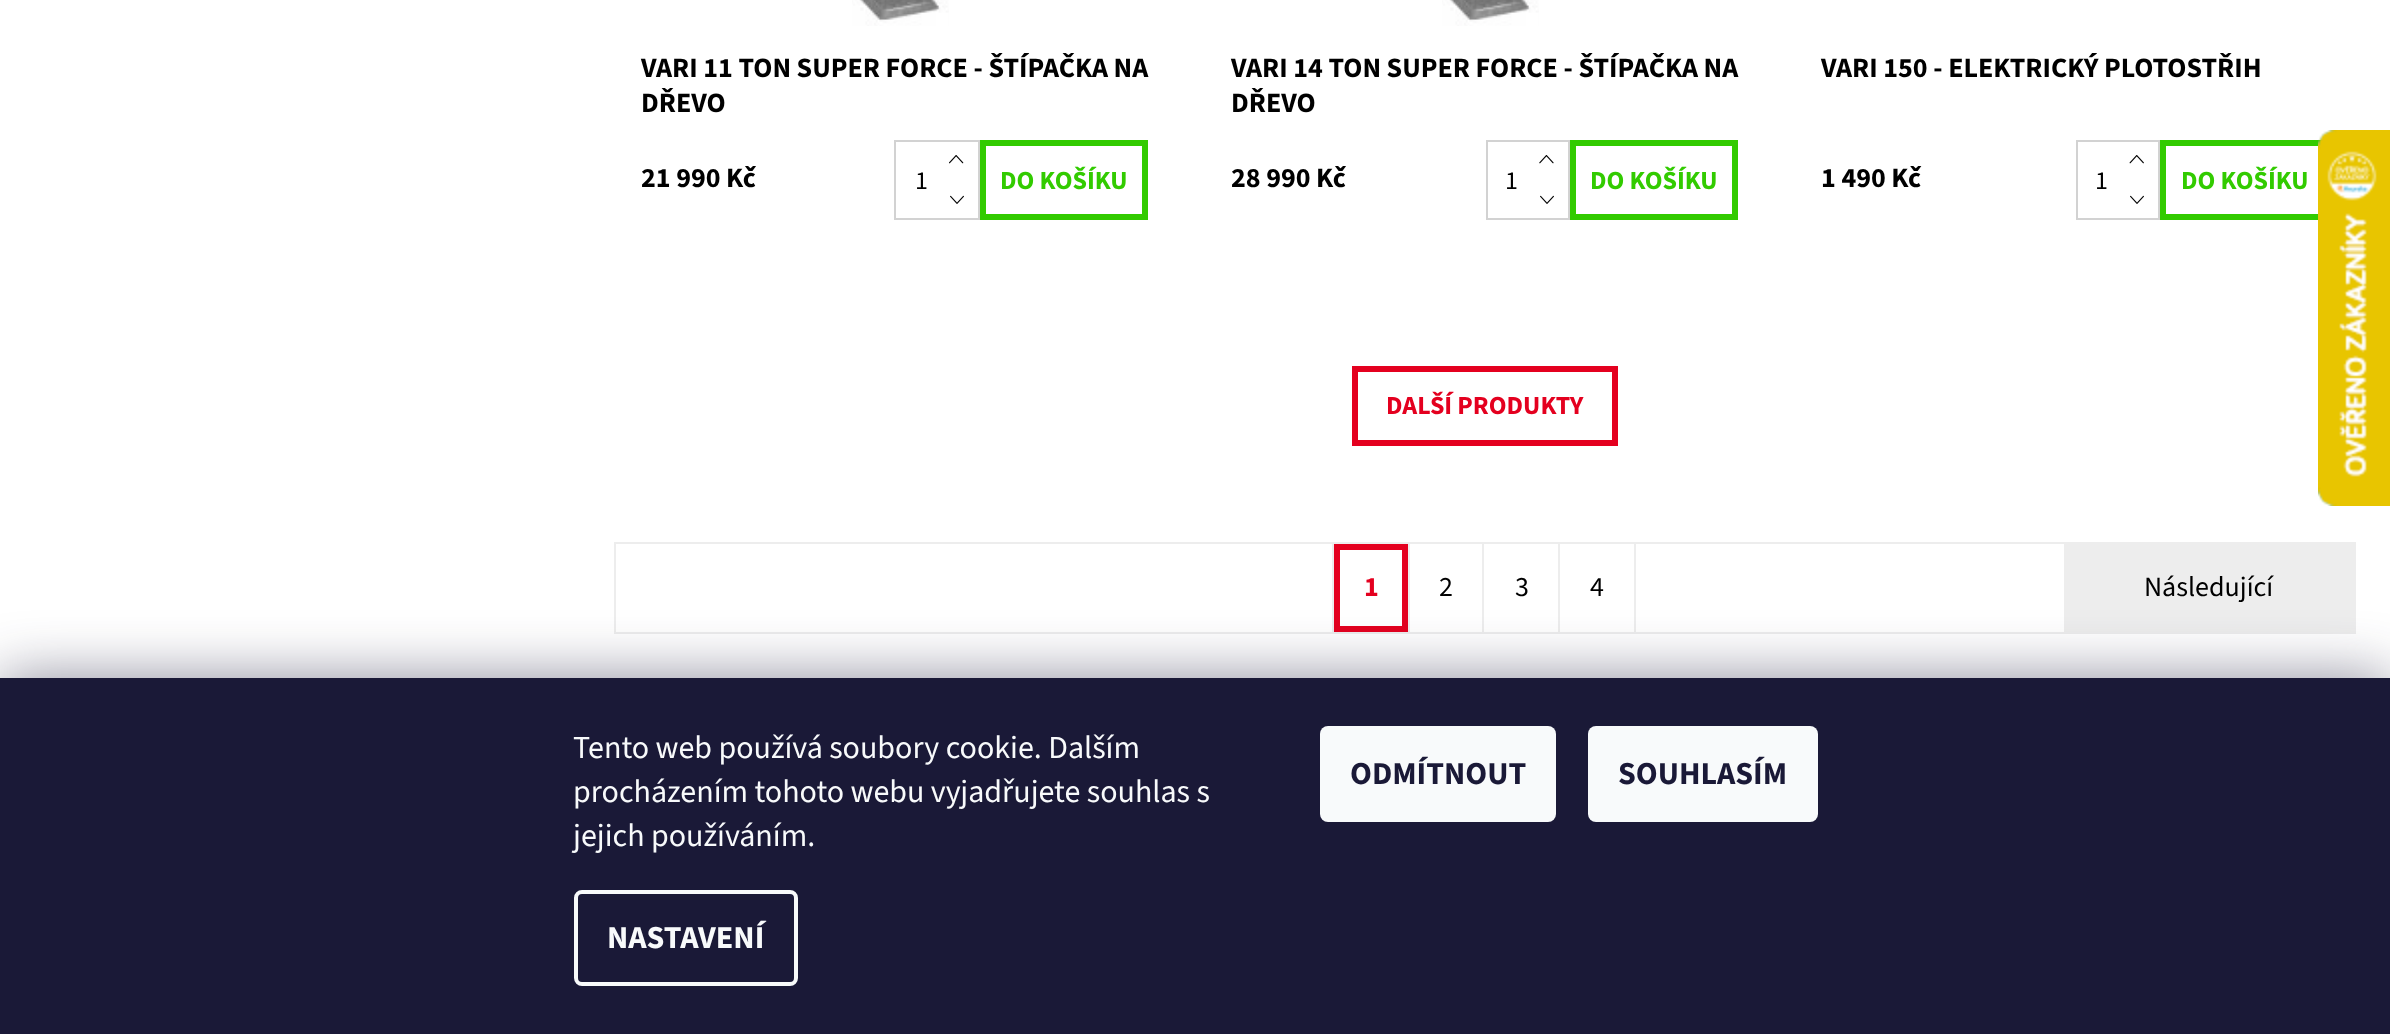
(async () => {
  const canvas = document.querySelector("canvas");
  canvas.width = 2390;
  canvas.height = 1034;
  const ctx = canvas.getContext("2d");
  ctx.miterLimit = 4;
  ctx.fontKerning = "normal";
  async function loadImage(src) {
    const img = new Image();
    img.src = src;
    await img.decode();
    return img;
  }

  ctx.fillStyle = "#ffffff";
  ctx.fillRect(0, 0, 2390, 1034);
  ctx.drawImage(await loadImage("img/1.png"), 852, 0, 97, 26);
  ctx.strokeStyle = "#d2d2d2";
  ctx.lineWidth = 2;
  ctx.strokeRect(895, 141, 84, 78);
  ctx.drawImage(await loadImage("img/2.png"), 949, 155, 15, 9);
  ctx.drawImage(await loadImage("img/3.png"), 950, 195, 14, 9);
  ctx.strokeStyle = "#32cb00";
  ctx.lineWidth = 4;
  ctx.strokeRect(984, 144, 160, 72);
  ctx.lineWidth = 2;
  ctx.strokeRect(981, 141, 166, 78);
  ctx.drawImage(await loadImage("img/1.png"), 1442, 0, 97, 26);
  ctx.strokeStyle = "#d2d2d2";
  ctx.strokeRect(1487, 141, 82, 78);
  ctx.drawImage(await loadImage("img/4.png"), 1539, 155, 15, 9);
  ctx.drawImage(await loadImage("img/3.png"), 1540, 195, 14, 9);
  ctx.strokeStyle = "#32cb00";
  ctx.lineWidth = 4;
  ctx.strokeRect(1574, 144, 160, 72);
  ctx.lineWidth = 2;
  ctx.strokeRect(1571, 141, 166, 78);
  ctx.strokeStyle = "#d2d2d2";
  ctx.strokeRect(2077, 141, 82, 78);
  ctx.drawImage(await loadImage("img/5.png"), 2129, 155, 15, 9);
  ctx.drawImage(await loadImage("img/3.png"), 2130, 195, 14, 9);
  ctx.strokeStyle = "#32cb00";
  ctx.lineWidth = 4;
  ctx.strokeRect(2164, 144, 162, 72);
  ctx.lineWidth = 2;
  ctx.strokeRect(2161, 141, 168, 78);
  ctx.strokeStyle = "#e4001f";
  ctx.lineWidth = 4;
  ctx.strokeRect(1356, 370, 258, 72);
  ctx.lineWidth = 2;
  ctx.strokeRect(1353, 367, 264, 78);
  ctx.strokeStyle = "#ededed";
  ctx.strokeRect(615, 543, 1740, 90);
  ctx.strokeStyle = "#e4001f";
  ctx.lineWidth = 6;
  ctx.strokeRect(1337, 547, 68, 82);
  for (const [x, y, w, h, color] of [
    [1408, 544, 2, 88, "#ededed"],
    [1332, 544, 2, 88, "#ededed"],
    [1482, 544, 2, 88, "#ededed"],
    [1558, 544, 2, 88, "#ededed"],
    [1634, 544, 2, 88, "#ededed"],
    [2064, 544, 290, 88, "#ededed"],
  ]) {
    ctx.fillStyle = color;
    ctx.fillRect(x, y, w, h);
  }
  ctx.drawImage(await loadImage("img/6.png"), 2318, 130, 72, 376);
  ctx.fillStyle = "rgba(27, 25, 57, 0.5)";
  ctx.filter = "blur(30px)";
  ctx.beginPath();
  ctx.rect(0, 678, 2390, 356);
  ctx.fill();
  ctx.filter = "none";
  ctx.fillStyle = "#1a1937";
  ctx.fillRect(0, 678, 2390, 356);
  ctx.beginPath();
  ctx.roundRect(576, 892, 220, 92, 6);
  ctx.strokeStyle = "#f8fafb";
  ctx.lineWidth = 4;
  ctx.stroke();
  ctx.fillStyle = "#f8fafb";
  ctx.beginPath();
  ctx.roundRect(1320, 726, 236, 96, 8);
  ctx.fill();
  ctx.beginPath();
  ctx.roundRect(1588, 726, 230, 96, 8);
  ctx.fill();
  ctx.font = "bold 28px 'Source Sans 3'";
  ctx.fillStyle = "#000000";
  for (const [text, x, y] of [
    ["VARI 11 TON SUPER FORCE - ŠTÍPAČKA NA", 641, 77],
    ["DŘEVO", 641, 112],
    ["21 990 Kč", 641, 187],
  ]) {
    ctx.fillText(text, x, y);
  }
  ctx.font = "26px 'Source Sans 3'";
  ctx.fillText("1", 915, 189);
  ctx.font = "bold 26px 'Source Sans 3'";
  ctx.fillStyle = "#32cb00";
  ctx.fillText("DO KOŠÍKU", 1000, 189);
  ctx.font = "bold 28px 'Source Sans 3'";
  ctx.fillStyle = "#000000";
  for (const [text, x, y] of [
    ["VARI 14 TON SUPER FORCE - ŠTÍPAČKA NA", 1231, 77],
    ["DŘEVO", 1231, 112],
    ["28 990 Kč", 1231, 187],
  ]) {
    ctx.fillText(text, x, y);
  }
  ctx.font = "26px 'Source Sans 3'";
  ctx.fillText("1", 1505, 189);
  ctx.font = "bold 26px 'Source Sans 3'";
  ctx.fillStyle = "#32cb00";
  ctx.fillText("DO KOŠÍKU", 1590, 189);
  ctx.font = "bold 28px 'Source Sans 3'";
  ctx.fillStyle = "#000000";
  ctx.fillText("VARI 150 - ELEKTRICKÝ PLOTOSTŘIH", 1821, 77);
  ctx.fillText("1 490 Kč", 1821, 187);
  ctx.font = "26px 'Source Sans 3'";
  ctx.fillText("1", 2095, 189);
  ctx.font = "bold 26px 'Source Sans 3'";
  ctx.fillStyle = "#32cb00";
  ctx.fillText("DO KOŠÍKU", 2181, 189);
  ctx.fillStyle = "#e4001f";
  ctx.fillText("DALŠÍ PRODUKTY", 1386, 414);
  ctx.font = "bold 28px 'Source Sans 3'";
  ctx.fillText("1", 1364, 596);
  ctx.font = "28px 'Source Sans 3'";
  ctx.fillStyle = "#000000";
  for (const [text, x, y] of [
    ["2", 1439, 596],
    ["3", 1515, 596],
    ["4", 1590, 596],
    ["Následující", 2144, 596],
  ]) {
    ctx.fillText(text, x, y);
  }
  ctx.font = "32px 'Source Sans 3'";
  ctx.fillStyle = "#f8fafb";
  for (const [text, x, y] of [
    ["Tento web používá soubory cookie. Dalším", 573, 758],
    ["procházením tohoto webu vyjadřujete souhlas s", 573, 802],
    ["jejich používáním.", 573, 846],
  ]) {
    ctx.fillText(text, x, y);
  }
  ctx.font = "bold 32px 'Source Sans 3'";
  ctx.fillText("NASTAVENÍ", 607, 948);
  ctx.fillStyle = "#1a1937";
  ctx.fillText("ODMÍTNOUT", 1350, 784);
  ctx.fillText("SOUHLASÍM", 1618, 784);
})();
